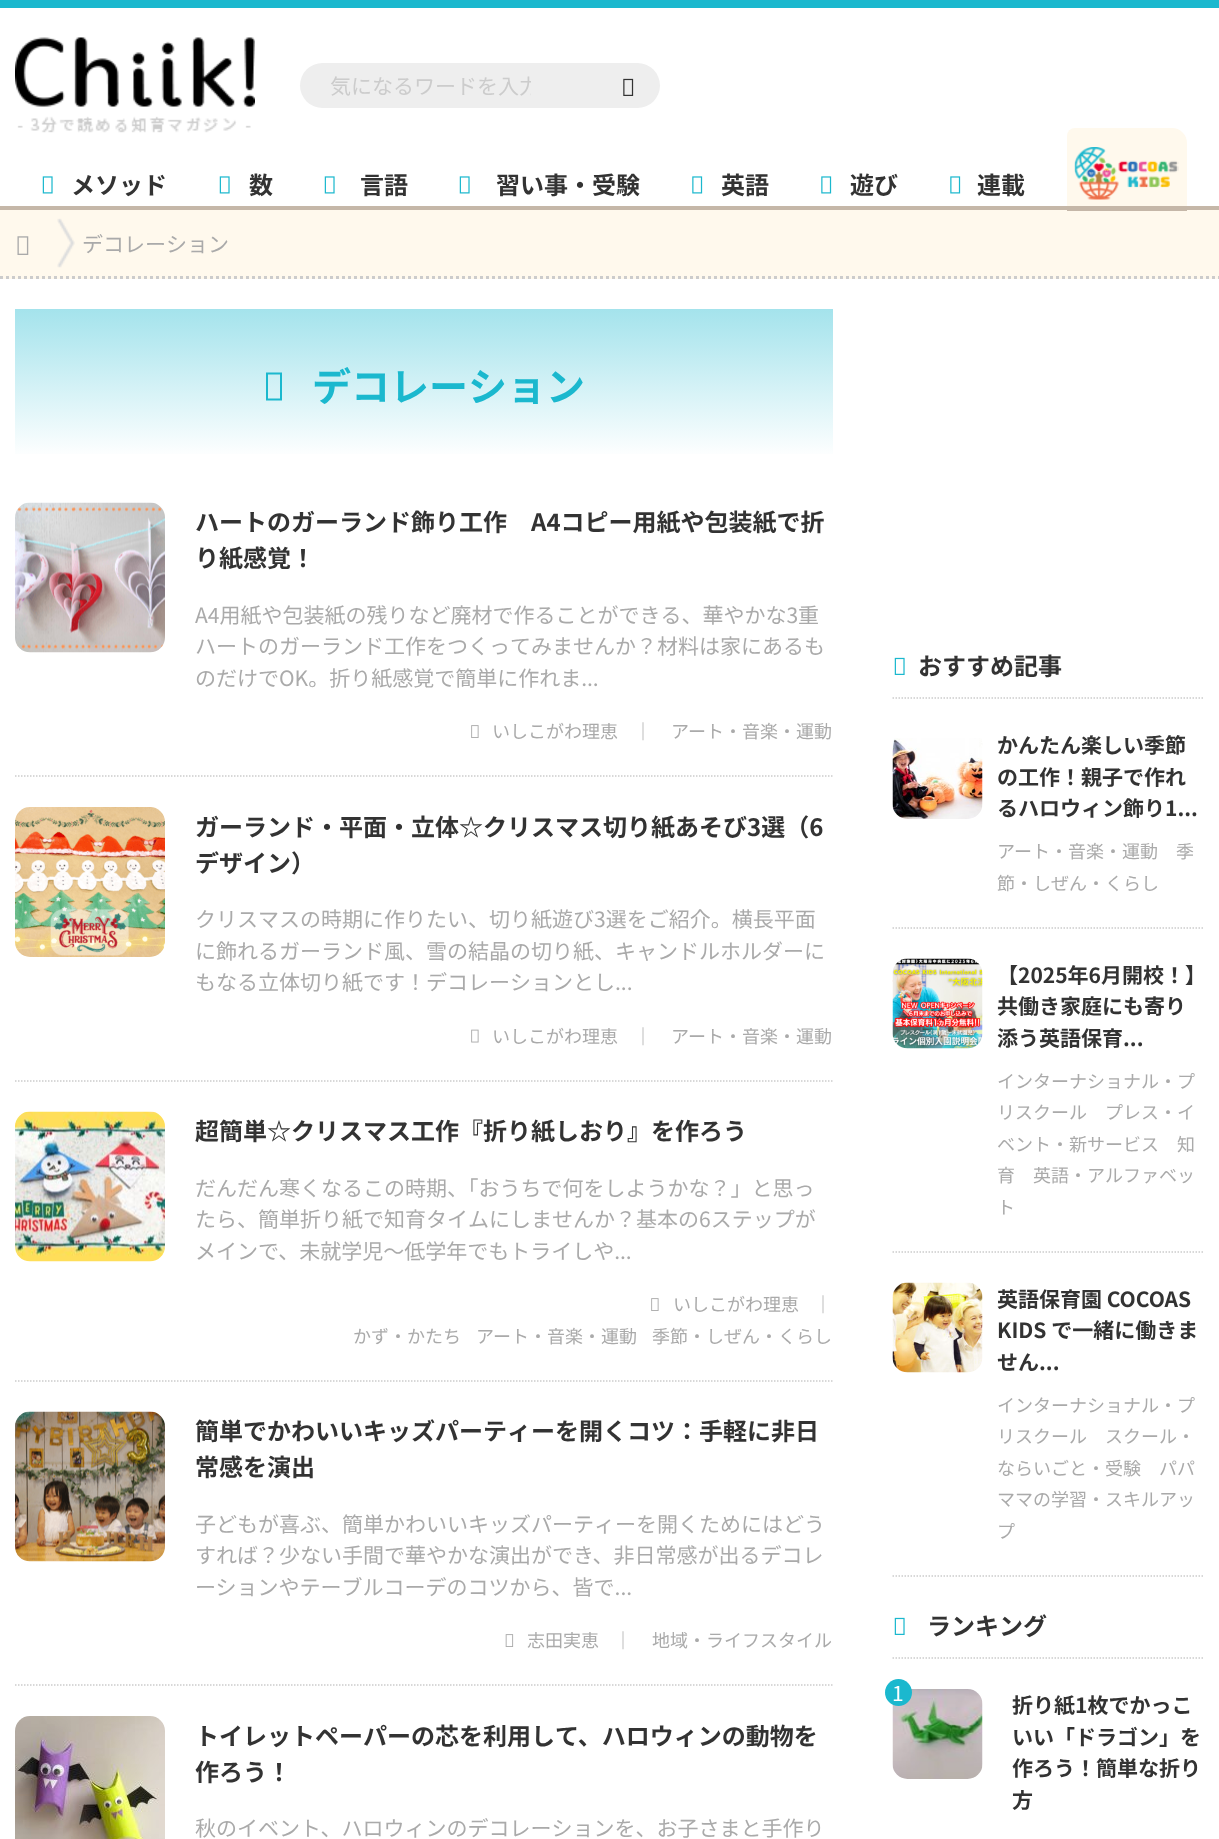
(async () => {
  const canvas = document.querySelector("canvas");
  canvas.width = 1219;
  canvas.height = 1839;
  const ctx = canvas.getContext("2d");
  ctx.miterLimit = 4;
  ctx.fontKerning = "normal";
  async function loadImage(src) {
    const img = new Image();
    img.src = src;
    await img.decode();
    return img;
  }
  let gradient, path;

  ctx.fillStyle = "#ffffff";
  ctx.fillRect(0, 0, 1219, 1839);
  ctx.fillStyle = "#1bb8ce";
  ctx.fillRect(0, 0, 1219, 8);
  ctx.drawImage(await loadImage("img/1.png"), 15, 37, 240, 96);
  ctx.fillStyle = "#eeeeee";
  ctx.beginPath();
  ctx.roundRect(300, 63, 360, 45, 22.5);
  ctx.fill();
  ctx.drawImage(await loadImage("img/2.png"), 623, 78, 11, 18);
  ctx.fillStyle = "#c5b7a8";
  ctx.fillRect(0, 206, 1219, 4);
  ctx.drawImage(await loadImage("img/3.png"), 42, 176, 11, 18);
  ctx.drawImage(await loadImage("img/3.png"), 219, 176, 11, 18);
  ctx.drawImage(await loadImage("img/3.png"), 324, 176, 11, 18);
  ctx.drawImage(await loadImage("img/3.png"), 459, 176, 11, 18);
  ctx.drawImage(await loadImage("img/4.png"), 692, 176, 11, 18);
  ctx.drawImage(await loadImage("img/4.png"), 821, 176, 11, 18);
  ctx.drawImage(await loadImage("img/4.png"), 950, 176, 11, 18);
  ctx.fillStyle = "#fff9ed";
  ctx.beginPath();
  ctx.roundRect(1067, 128, 120, 82, [8, 15, 0, 0]);
  ctx.fill();
  ctx.fillRect(0, 210, 1219, 69);
  ctx.fillStyle = "#c5b7a8";
  ctx.fillRect(1067, 206, 120, 5);
  ctx.drawImage(await loadImage("img/5.png"), 1074, 147, 105, 53);
  path = new Path2D("M0 277.5H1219.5");
  ctx.strokeStyle = "#cccccc";
  ctx.lineWidth = 3;
  ctx.setLineDash([3, 3]);
  ctx.stroke(path);
  ctx.drawImage(await loadImage("img/6.png"), 17, 236, 12, 19);
  ctx.drawImage(await loadImage("img/7.png"), 57, 218, 18, 50);
  gradient = ctx.createLinearGradient(424, 309, 424, 458);
  gradient.addColorStop(0, "#a4e3ec");
  gradient.addColorStop(1, "#ffffff");
  ctx.fillStyle = gradient;
  ctx.fillRect(15, 309, 818, 145);
  ctx.fillStyle = "#1bb8ce";
  path = new Path2D("M266 400.5V372.5H282V400.5ZM268 398.5H280V374.5H268Z");
  ctx.fill(path);
  path = new Path2D("M15 776H832.5");
  ctx.lineWidth = 1.5;
  ctx.setLineDash([1.5, 1.5]);
  ctx.stroke(path);
  ctx.drawImage(await loadImage("img/8.png"), 15, 502, 150, 151);
  ctx.drawImage(await loadImage("img/9.png"), 471, 725, 8, 13);
  path = new Path2D("M15 1081H832.5");
  ctx.stroke(path);
  ctx.drawImage(await loadImage("img/10.png"), 15, 807, 150, 150);
  ctx.drawImage(await loadImage("img/11.png"), 471, 1029, 8, 14);
  path = new Path2D("M15 1381H832.5");
  ctx.stroke(path);
  ctx.drawImage(await loadImage("img/12.png"), 15, 1111, 150, 151);
  ctx.drawImage(await loadImage("img/9.png"), 651, 1298, 8, 13);
  path = new Path2D("M15 1685H832.5");
  ctx.stroke(path);
  ctx.drawImage(await loadImage("img/13.png"), 15, 1411, 150, 151);
  ctx.drawImage(await loadImage("img/14.png"), 505, 1634, 9, 13);
  ctx.drawImage(await loadImage("img/15.png"), 15, 1716, 150, 123);
  path = new Path2D("M892.5 698H1204.5");
  ctx.stroke(path);
  ctx.drawImage(await loadImage("img/16.png"), 894, 657, 11, 18);
  path = new Path2D("M892.5 928H1204.5");
  ctx.stroke(path);
  ctx.drawImage(await loadImage("img/17.png"), 892, 738, 91, 81);
  path = new Path2D("M892.5 1252H1204.5");
  ctx.stroke(path);
  ctx.drawImage(await loadImage("img/18.png"), 892, 958, 91, 91);
  path = new Path2D("M892.5 1576H1204.5");
  ctx.stroke(path);
  ctx.drawImage(await loadImage("img/19.png"), 892, 1282, 91, 91);
  path = new Path2D("M892.5 1658H1204.5");
  ctx.stroke(path);
  ctx.drawImage(await loadImage("img/16.png"), 894, 1617, 11, 18);
  ctx.drawImage(await loadImage("img/20.png"), 892, 1689, 91, 90);
  ctx.beginPath();
  ctx.arc(898.5, 1692.5, 13.5, 0, Math.PI * 2);
  ctx.fill();
  ctx.save();
  ctx.beginPath();
  ctx.rect(330, 71, 201, 30);
  ctx.clip();
  ctx.font = "21px Noto Sans JP";
  ctx.fillStyle = "#cccccc";
  ctx.fillText("気になるワードを入力", 330, 94);
  ctx.restore();
  ctx.font = "bold 24px Noto Sans JP";
  ctx.fillStyle = "#333333";
  for (const [text, x, y] of [
    ["メソッド", 71, 194],
    ["数", 249, 194],
    ["言語", 360, 194],
    ["習い事・受験", 496, 194],
    ["英語", 721, 194],
    ["遊び", 850, 194],
    ["連載", 977, 194],
  ]) {
    ctx.fillText(text, x, y);
  }
  ctx.font = "21px Noto Sans JP";
  ctx.fillStyle = "#aaaaaa";
  ctx.fillText("デコレーション", 82, 252);
  ctx.font = "bold 39px Noto Sans JP";
  ctx.fillStyle = "#1bb8ce";
  ctx.fillText("デコレーション", 312, 401);
  ctx.font = "bold 24px Noto Sans JP";
  ctx.fillStyle = "#333333";
  ctx.fillText("ハートのガーランド飾り工作　A4コピー用紙や包装紙で折", 195, 531);
  ctx.fillText("り紙感覚！", 195, 567);
  ctx.font = "21px Noto Sans JP";
  ctx.fillStyle = "#aaaaaa";
  for (const [text, x, y] of [
    ["A4用紙や包装紙の残りなど廃材で作ることができる、華やかな3重", 195, 623],
    ["ハートのガーランド工作をつくってみませんか？材料は家にあるも", 195, 654],
    ["のだけでOK。折り紙感覚で簡単に作れま...", 195, 686],
  ]) {
    ctx.fillText(text, x, y);
  }
  ctx.font = "18px Noto Sans JP";
  for (const [text, x, y] of [
    ["いしこがわ理恵", 492, 738],
    ["│", 634, 738],
    ["アート・音楽・運動", 671, 738],
  ]) {
    ctx.fillText(text, x, y);
  }
  ctx.font = "bold 24px Noto Sans JP";
  ctx.fillStyle = "#333333";
  ctx.fillText("ガーランド・平面・立体☆クリスマス切り紙あそび3選（6", 195, 836);
  ctx.fillText("デザイン）", 195, 872);
  ctx.font = "21px Noto Sans JP";
  ctx.fillStyle = "#aaaaaa";
  for (const [text, x, y] of [
    ["クリスマスの時期に作りたい、切り紙遊び3選をご紹介。横長平面", 195, 927],
    ["に飾れるガーランド風、雪の結晶の切り紙、キャンドルホルダーに", 195, 959],
    ["もなる立体切り紙です！デコレーションとし...", 195, 990],
  ]) {
    ctx.fillText(text, x, y);
  }
  ctx.font = "18px Noto Sans JP";
  for (const [text, x, y] of [
    ["いしこがわ理恵", 492, 1043],
    ["│", 634, 1043],
    ["アート・音楽・運動", 671, 1043],
  ]) {
    ctx.fillText(text, x, y);
  }
  ctx.font = "bold 24px Noto Sans JP";
  ctx.fillStyle = "#333333";
  ctx.fillText("超簡単☆クリスマス工作『折り紙しおり』を作ろう", 195, 1140);
  ctx.font = "21px Noto Sans JP";
  ctx.fillStyle = "#aaaaaa";
  for (const [text, x, y] of [
    ["だんだん寒くなるこの時期、「おうちで何をしようかな？」と思っ", 195, 1196],
    ["たら、簡単折り紙で知育タイムにしませんか？基本の6ステップが", 195, 1227],
    ["メインで、未就学児～低学年でもトライしや...", 195, 1259],
  ]) {
    ctx.fillText(text, x, y);
  }
  ctx.font = "18px Noto Sans JP";
  for (const [text, x, y] of [
    ["いしこがわ理恵", 673, 1311],
    ["│", 814, 1311],
    ["かず・かたち", 353, 1343],
    ["アート・音楽・運動", 476, 1343],
    ["季節・しぜん・くらし", 652, 1343],
  ]) {
    ctx.fillText(text, x, y);
  }
  ctx.font = "bold 24px Noto Sans JP";
  ctx.fillStyle = "#333333";
  ctx.fillText("簡単でかわいいキッズパーティーを開くコツ：手軽に非日", 195, 1440);
  ctx.fillText("常感を演出", 195, 1476);
  ctx.font = "21px Noto Sans JP";
  ctx.fillStyle = "#aaaaaa";
  for (const [text, x, y] of [
    ["子どもが喜ぶ、簡単かわいいキッズパーティーを開くためにはどう", 195, 1532],
    ["すれば？少ない手間で華やかな演出ができ、非日常感が出るデコレ", 195, 1563],
    ["ーションやテーブルコーデのコツから、皆で...", 195, 1595],
  ]) {
    ctx.fillText(text, x, y);
  }
  ctx.font = "18px Noto Sans JP";
  for (const [text, x, y] of [
    ["志田実恵", 527, 1647],
    ["│", 614, 1647],
    ["地域・ライフスタイル", 652, 1647],
  ]) {
    ctx.fillText(text, x, y);
  }
  ctx.font = "bold 24px Noto Sans JP";
  ctx.fillStyle = "#333333";
  ctx.fillText("トイレットペーパーの芯を利用して、ハロウィンの動物を", 195, 1745);
  ctx.fillText("作ろう！", 195, 1781);
  ctx.font = "21px Noto Sans JP";
  ctx.fillStyle = "#aaaaaa";
  ctx.fillText("秋のイベント、ハロウィンのデコレーションを、お子さまと手作り", 195, 1836);
  ctx.font = "bold 24px Noto Sans JP";
  ctx.fillStyle = "#333333";
  ctx.fillText("おすすめ記事", 918, 675);
  ctx.font = "bold 21px Noto Sans JP";
  for (const [text, x, y] of [
    ["かんたん楽しい季節", 997, 753],
    ["の工作！親子で作れ", 997, 785],
    ["るハロウィン飾り1...", 997, 816],
  ]) {
    ctx.fillText(text, x, y);
  }
  ctx.font = "18px Noto Sans JP";
  ctx.fillStyle = "#aaaaaa";
  for (const [text, x, y] of [
    ["アート・音楽・運動", 997, 858],
    ["季", 1176, 858],
    ["節・しぜん・くらし", 997, 890],
  ]) {
    ctx.fillText(text, x, y);
  }
  ctx.font = "bold 21px Noto Sans JP";
  ctx.fillStyle = "#333333";
  for (const [text, x, y] of [
    ["【2025年6月開校！】", 997, 983],
    ["共働き家庭にも寄り", 997, 1014],
    ["添う英語保育...", 997, 1046],
  ]) {
    ctx.fillText(text, x, y);
  }
  ctx.font = "18px Noto Sans JP";
  ctx.fillStyle = "#aaaaaa";
  for (const [text, x, y] of [
    ["インターナショナル・プ", 997, 1088],
    ["リスクール", 997, 1119],
    ["プレス・イ", 1105, 1119],
    ["ベント・新サービス", 997, 1151],
    ["知", 1177, 1151],
    ["育", 997, 1182],
    ["英語・アルファベッ", 1033, 1182],
    ["ト", 997, 1214],
  ]) {
    ctx.fillText(text, x, y);
  }
  ctx.font = "bold 21px Noto Sans JP";
  ctx.fillStyle = "#333333";
  for (const [text, x, y] of [
    ["英語保育園 COCOAS", 997, 1307],
    ["KIDS で一緒に働きま", 997, 1338],
    ["せん...", 997, 1370],
  ]) {
    ctx.fillText(text, x, y);
  }
  ctx.font = "18px Noto Sans JP";
  ctx.fillStyle = "#aaaaaa";
  for (const [text, x, y] of [
    ["インターナショナル・プ", 997, 1412],
    ["リスクール", 997, 1443],
    ["スクール・", 1105, 1443],
    ["ならいごと・受験", 997, 1475],
    ["パパ", 1159, 1475],
    ["ママの学習・スキルアッ", 997, 1506],
    ["プ", 997, 1538],
  ]) {
    ctx.fillText(text, x, y);
  }
  ctx.font = "bold 24px Noto Sans JP";
  ctx.fillStyle = "#333333";
  ctx.fillText("ランキング", 927, 1635);
  ctx.font = "21px Noto Sans JP";
  ctx.fillStyle = "#ffffff";
  ctx.fillText("1", 892, 1701);
  ctx.font = "bold 21px Noto Sans JP";
  ctx.fillStyle = "#333333";
  for (const [text, x, y] of [
    ["折り紙1枚でかっこ", 1012, 1713],
    ["いい「ドラゴン」を", 1012, 1745],
    ["作ろう！簡単な折り", 1012, 1776],
    ["方", 1012, 1808],
  ]) {
    ctx.fillText(text, x, y);
  }
})();
